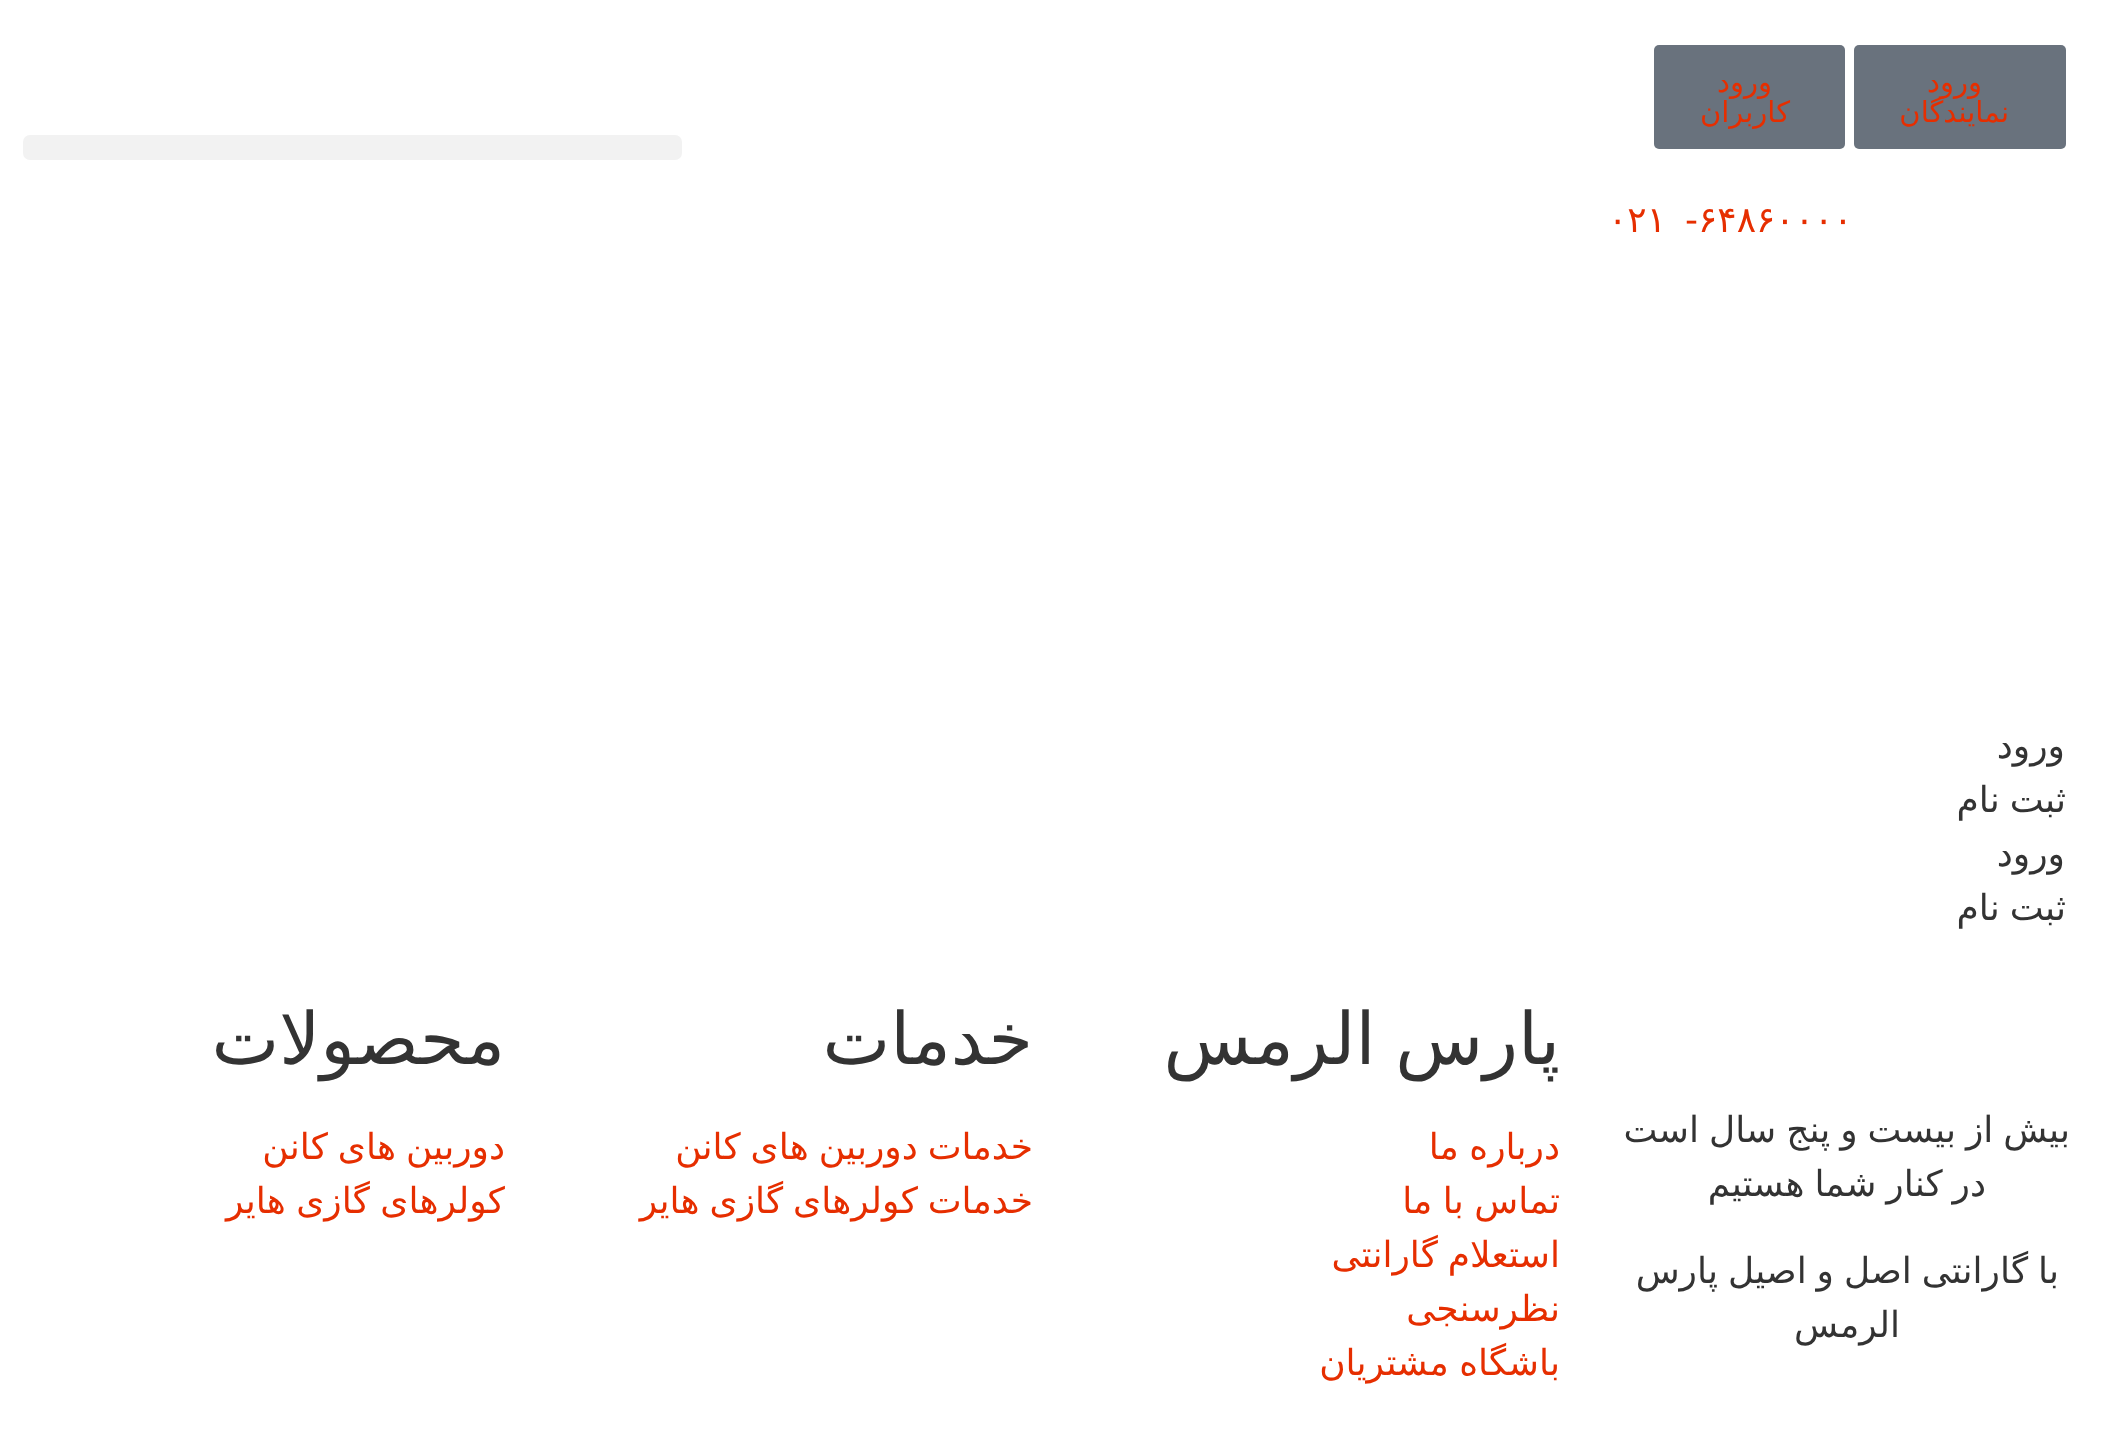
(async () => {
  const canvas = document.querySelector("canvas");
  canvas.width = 2110;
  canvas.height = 1453;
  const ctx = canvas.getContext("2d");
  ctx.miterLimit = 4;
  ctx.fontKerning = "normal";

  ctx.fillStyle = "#ffffff";
  ctx.fillRect(0, 0, 2110, 1453);
  ctx.fillStyle = "#69727d";
  ctx.beginPath();
  ctx.roundRect(1854, 45, 212, 104, 5);
  ctx.fill();
  ctx.beginPath();
  ctx.roundRect(1654, 45, 191, 104, 5);
  ctx.fill();
  ctx.fillStyle = "#f2f2f2";
  ctx.beginPath();
  ctx.roundRect(23, 135, 659, 25, 7);
  ctx.fill();
  ctx.direction = "rtl";
  ctx.font = "29px DejaVu Sans";
  ctx.fillStyle = "#e62e00";
  for (const [text, x, y] of [
    ["ورود", 1982, 92],
    ["نمایندگان", 2009, 122],
    ["ورود", 1772, 92],
    ["کاربران", 1790, 122],
  ]) {
    ctx.fillText(text, x, y);
  }
  ctx.direction = "ltr";
  ctx.font = "36px DejaVu Sans";
  ctx.fillText("-۶۴۸۶۰۰۰۰", 1685, 232);
  ctx.fillText("۰۲۱", 1608, 232);
  ctx.direction = "rtl";
  ctx.fillStyle = "#333333";
  ctx.fillText("ورود", 2065, 758);
  ctx.wordSpacing = "-1.5px";
  ctx.fillText("ثبت نام", 2066, 812);
  ctx.wordSpacing = "0px";
  ctx.fillText("ورود", 2065, 866);
  ctx.wordSpacing = "-1.5px";
  for (const [text, x, y] of [
    ["ثبت نام", 2066, 920],
    ["بیش از بیست و پنج سال است", 2070, 1142],
    ["در کنار شما هستیم", 1986, 1196],
    ["با گارانتی اصل و اصیل پارس", 2059, 1283],
  ]) {
    ctx.fillText(text, x, y);
  }
  ctx.wordSpacing = "0px";
  ctx.fillText("الرمس", 1900, 1337);
  ctx.wordSpacing = "-3px";
  ctx.font = "72px DejaVu Sans";
  ctx.fillText("پارس الرمس", 1560, 1064);
  ctx.wordSpacing = "-1px";
  ctx.font = "36px DejaVu Sans";
  ctx.fillStyle = "#e62e00";
  ctx.fillText("درباره ما", 1560, 1159);
  ctx.fillText("تماس با ما", 1560, 1213);
  ctx.wordSpacing = "-1.5px";
  ctx.fillText("استعلام گارانتی", 1560, 1267);
  ctx.wordSpacing = "0px";
  ctx.fillText("نظرسنجی", 1560, 1321);
  ctx.wordSpacing = "-1px";
  ctx.fillText("باشگاه مشتریان", 1560, 1375);
  ctx.wordSpacing = "0px";
  ctx.font = "72px DejaVu Sans";
  ctx.fillStyle = "#333333";
  ctx.fillText("خدمات", 1033, 1064);
  ctx.wordSpacing = "-1.5px";
  ctx.font = "36px DejaVu Sans";
  ctx.fillStyle = "#e62e00";
  ctx.fillText("خدمات دوربین های کانن", 1033, 1159);
  ctx.fillText("خدمات کولرهای گازی هایر", 1033, 1213);
  ctx.wordSpacing = "0px";
  ctx.font = "72px DejaVu Sans";
  ctx.fillStyle = "#333333";
  ctx.fillText("محصولات", 505, 1064);
  ctx.wordSpacing = "-1.5px";
  ctx.font = "36px DejaVu Sans";
  ctx.fillStyle = "#e62e00";
  ctx.fillText("دوربین های کانن", 505, 1159);
  ctx.wordSpacing = "-1px";
  ctx.fillText("کولرهای گازی هایر", 505, 1213);
})();
